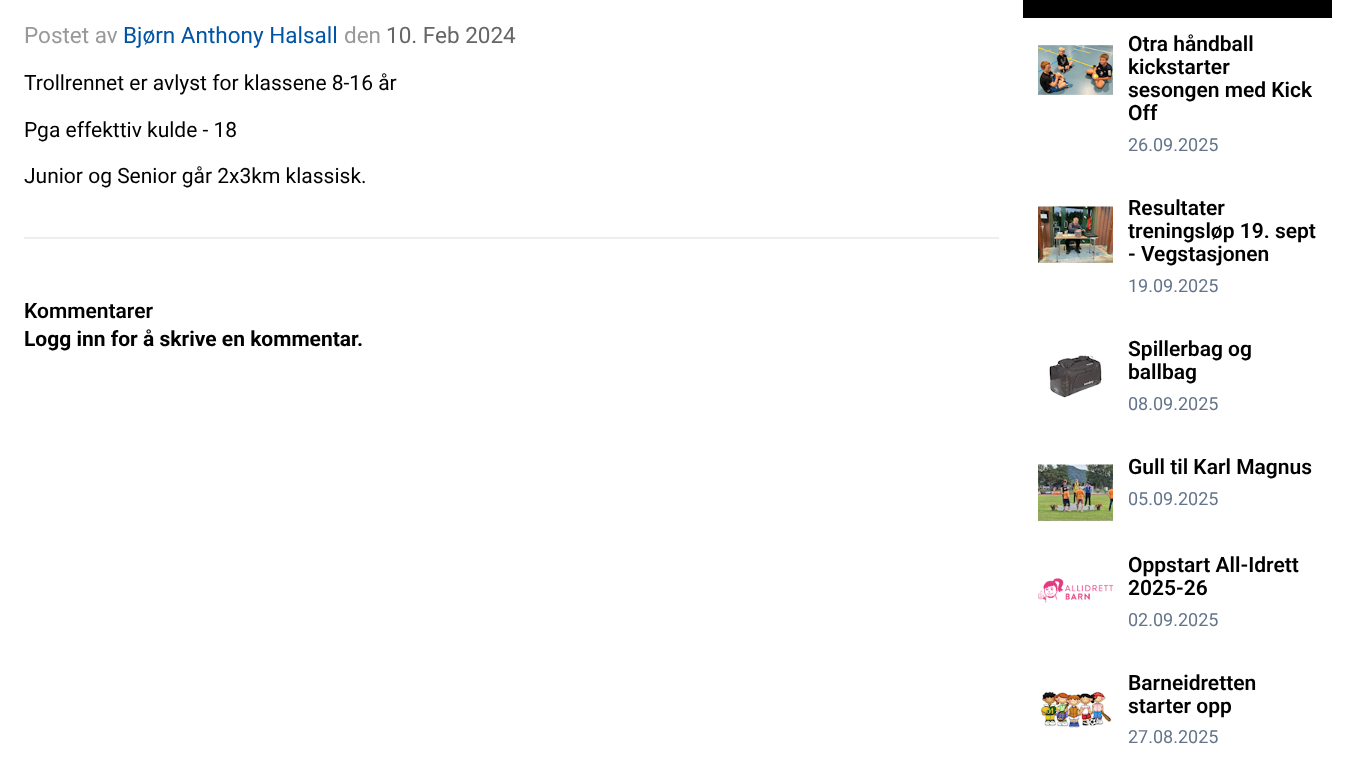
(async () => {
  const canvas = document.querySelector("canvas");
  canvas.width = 1356;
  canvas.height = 783;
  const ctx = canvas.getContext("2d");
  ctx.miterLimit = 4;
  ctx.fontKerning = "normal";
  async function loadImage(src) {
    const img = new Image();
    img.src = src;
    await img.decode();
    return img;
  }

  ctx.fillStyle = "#ffffff";
  ctx.fillRect(0, 0, 1356, 783);
  ctx.fillStyle = "#eeeeee";
  ctx.fillRect(24, 237, 975, 2);
  ctx.fillStyle = "#000000";
  ctx.fillRect(1023, 0, 309, 18);
  ctx.drawImage(await loadImage("img/1.png"), 1038, 45, 75, 50);
  ctx.drawImage(await loadImage("img/2.png"), 1038, 198, 75, 66);
  ctx.drawImage(await loadImage("img/3.png"), 1049, 355, 53, 43);
  ctx.drawImage(await loadImage("img/4.png"), 1038, 463, 75, 59);
  ctx.drawImage(await loadImage("img/5.png"), 1038, 578, 75, 25);
  ctx.drawImage(await loadImage("img/6.png"), 1040, 691, 72, 37);
  ctx.font = "22.5px Roboto";
  ctx.fillStyle = "#999999";
  ctx.fillText("Postet av", 24, 43);
  ctx.fillStyle = "#0054a6";
  ctx.fillText("Bjørn Anthony Halsall", 123, 43);
  ctx.fillStyle = "#999999";
  ctx.fillText("den", 344, 43);
  ctx.fillStyle = "#666666";
  ctx.fillText("10. Feb 2024", 386, 43);
  ctx.font = "21px Roboto";
  ctx.fillStyle = "#000000";
  for (const [text, x, y] of [
    ["Trollrennet er avlyst for klassene 8-16 år", 24, 90],
    ["Pga effekttiv kulde - 18", 24, 137],
    ["Junior og Senior går 2x3km klassisk.", 24, 183],
  ]) {
    ctx.fillText(text, x, y);
  }
  ctx.font = "600 21px Roboto";
  ctx.fillText("Kommentarer", 24, 318);
  ctx.font = "bold 21px Roboto";
  ctx.fillText("Logg inn for å skrive en kommentar.", 24, 346);
  ctx.font = "600 21px Roboto";
  for (const [text, x, y] of [
    ["Otra håndball", 1128, 51],
    ["kickstarter", 1128, 74],
    ["sesongen med Kick", 1128, 97],
    ["Off", 1128, 120],
  ]) {
    ctx.fillText(text, x, y);
  }
  ctx.font = "18px Roboto";
  ctx.fillStyle = "#64748b";
  ctx.fillText("26.09.2025", 1128, 151);
  ctx.font = "600 21px Roboto";
  ctx.fillStyle = "#000000";
  for (const [text, x, y] of [
    ["Resultater", 1128, 215],
    ["treningsløp 19. sept", 1128, 238],
    ["- Vegstasjonen", 1128, 261],
  ]) {
    ctx.fillText(text, x, y);
  }
  ctx.font = "18px Roboto";
  ctx.fillStyle = "#64748b";
  ctx.fillText("19.09.2025", 1128, 292);
  ctx.font = "600 21px Roboto";
  ctx.fillStyle = "#000000";
  ctx.fillText("Spillerbag og", 1128, 356);
  ctx.fillText("ballbag", 1128, 379);
  ctx.font = "18px Roboto";
  ctx.fillStyle = "#64748b";
  ctx.fillText("08.09.2025", 1128, 410);
  ctx.font = "600 21px Roboto";
  ctx.fillStyle = "#000000";
  ctx.fillText("Gull til Karl Magnus", 1128, 474);
  ctx.font = "18px Roboto";
  ctx.fillStyle = "#64748b";
  ctx.fillText("05.09.2025", 1128, 505);
  ctx.font = "600 21px Roboto";
  ctx.fillStyle = "#000000";
  ctx.fillText("Oppstart All-Idrett", 1128, 572);
  ctx.fillText("2025-26", 1128, 595);
  ctx.font = "18px Roboto";
  ctx.fillStyle = "#64748b";
  ctx.fillText("02.09.2025", 1128, 626);
  ctx.font = "600 21px Roboto";
  ctx.fillStyle = "#000000";
  ctx.fillText("Barneidretten", 1128, 690);
  ctx.fillText("starter opp", 1128, 713);
  ctx.font = "18px Roboto";
  ctx.fillStyle = "#64748b";
  ctx.fillText("27.08.2025", 1128, 743);
})();
